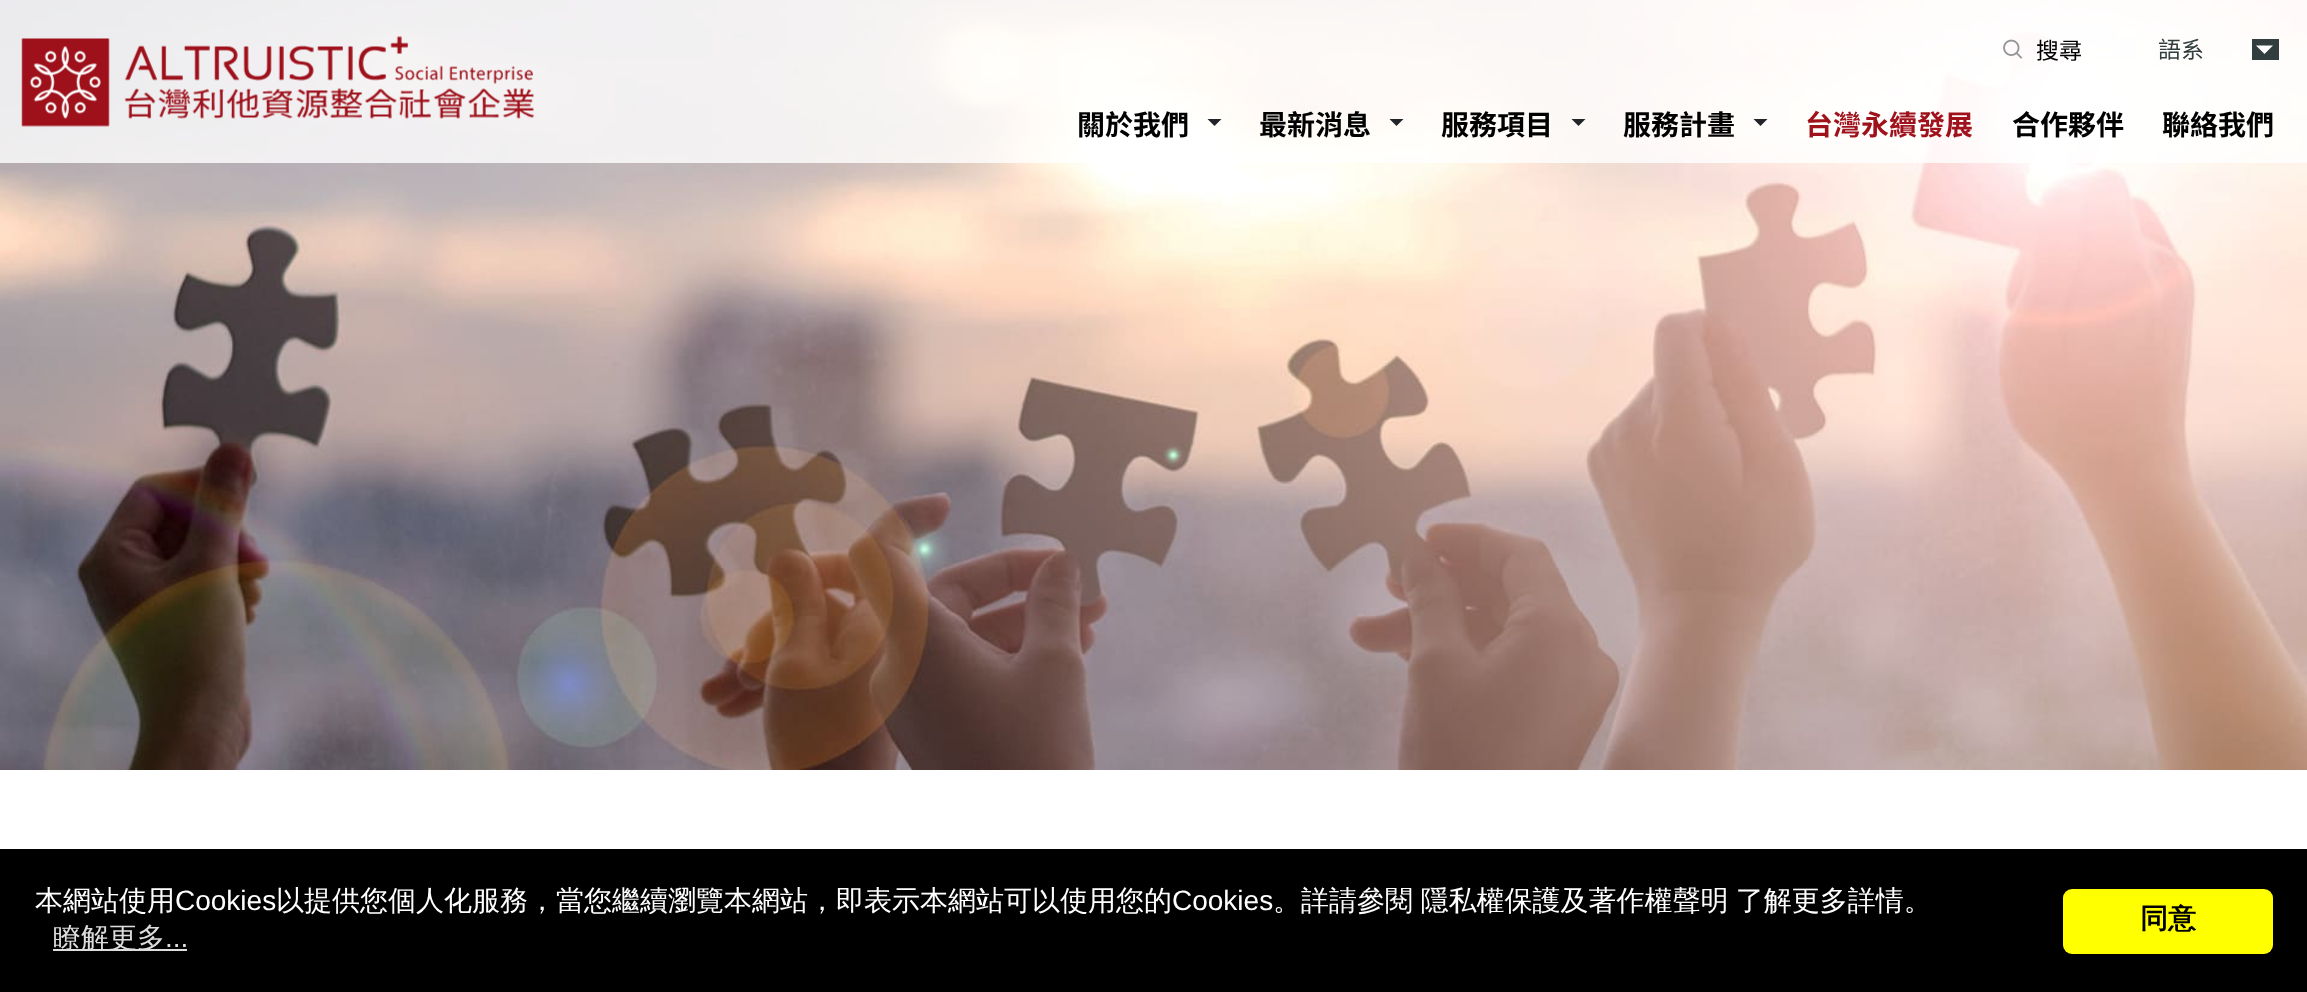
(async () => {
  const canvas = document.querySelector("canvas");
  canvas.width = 2307;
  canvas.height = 992;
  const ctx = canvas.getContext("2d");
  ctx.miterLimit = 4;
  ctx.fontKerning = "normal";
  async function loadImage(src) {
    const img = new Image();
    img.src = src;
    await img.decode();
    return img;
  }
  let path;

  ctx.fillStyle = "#ffffff";
  ctx.fillRect(0, 0, 2307, 992);
  ctx.drawImage(await loadImage("img/1.png"), 0, 0, 2307, 770);
  ctx.fillStyle = "rgba(255, 255, 255, 0.8)";
  ctx.fillRect(0, 0, 2307, 163);
  ctx.drawImage(await loadImage("img/2.png"), 21, 36, 514, 91);
  ctx.drawImage(await loadImage("img/3.png"), 2003, 39, 19, 20);
  ctx.fillStyle = "#323d3d";
  ctx.fillRect(2252, 39, 27, 21);
  ctx.fillStyle = "#ffffff";
  path = new Path2D("M2256 45.5H2273L2264.5 54Z");
  ctx.fill(path);
  ctx.fillStyle = "#212529";
  path = new Path2D("M1207.5 119H1221.5L1214.5 126Z");
  ctx.fill(path);
  path = new Path2D("M1389.5 119H1403.5L1396.5 126Z");
  ctx.fill(path);
  path = new Path2D("M1571.5 119H1585.5L1578.5 126Z");
  ctx.fill(path);
  path = new Path2D("M1753.5 119H1767.5L1760.5 126Z");
  ctx.fill(path);
  ctx.fillStyle = "#000000";
  ctx.fillRect(0, 849, 2307, 143);
  ctx.fillStyle = "#dddddd";
  ctx.fillRect(53, 949, 134, 2);
  ctx.fillStyle = "#ffff00";
  ctx.beginPath();
  ctx.roundRect(2063, 889, 210, 65, 9);
  ctx.fill();
  ctx.font = "23px Noto Sans TC";
  ctx.fillStyle = "#000000";
  ctx.fillText("搜尋", 2036, 59);
  ctx.fillStyle = "#323d3d";
  ctx.fillText("語系", 2158, 58);
  ctx.font = "bold 28px Noto Sans TC";
  ctx.fillStyle = "#000000";
  for (const [text, x, y] of [
    ["關於我們", 1077, 135],
    ["最新消息", 1259, 135],
    ["服務項目", 1441, 135],
    ["服務計畫", 1623, 135],
  ]) {
    ctx.fillText(text, x, y);
  }
  ctx.fillStyle = "#9f121b";
  ctx.fillText("台灣永續發展", 1805, 135);
  ctx.fillStyle = "#000000";
  ctx.fillText("合作夥伴", 2012, 135);
  ctx.fillText("聯絡我們", 2162, 135);
  ctx.font = "500 28px WenQuanYi Zen Hei";
  ctx.fillStyle = "#ffffff";
  ctx.fillText("本網站使用", 35, 910);
  ctx.font = "28px Liberation Sans";
  ctx.fillText("Cookies", 175, 910);
  ctx.font = "500 28px WenQuanYi Zen Hei";
  ctx.fillText("以提供您個人化服務，當您繼續瀏覽本網站，即表示本網站可以使用您的", 276, 910);
  ctx.font = "28px Liberation Sans";
  ctx.fillText("Cookies", 1172, 910);
  ctx.wordSpacing = "-1px";
  ctx.font = "500 28px WenQuanYi Zen Hei";
  ctx.fillText("。詳請參閱 隱私權保護及著作權聲明 了解更多詳情。", 1273, 910);
  ctx.wordSpacing = "0px";
  ctx.fillStyle = "#dddddd";
  ctx.fillText("瞭解更多", 53, 947);
  ctx.font = "28px Liberation Sans";
  ctx.fillText("...", 165, 947);
  ctx.font = "bold 28px WenQuanYi Zen Hei";
  ctx.fillStyle = "#000000";
  ctx.fillText("同意", 2140, 928);
})();
